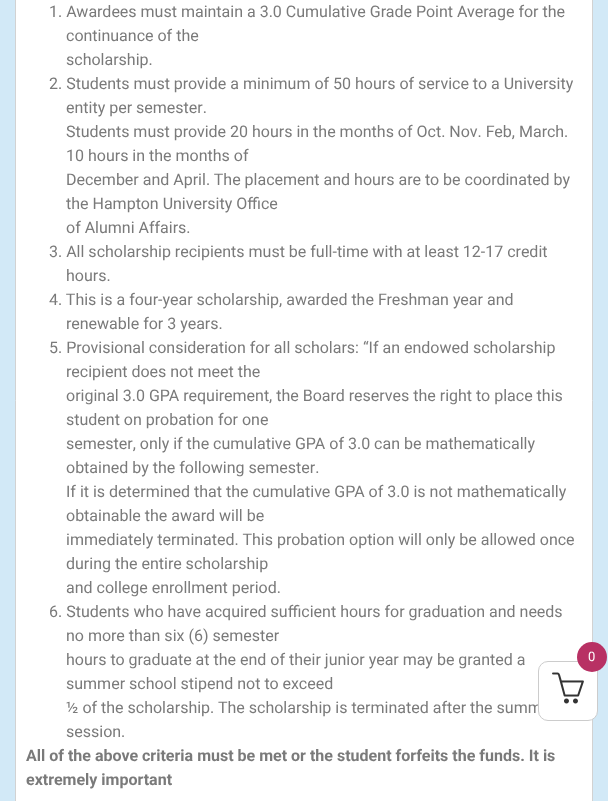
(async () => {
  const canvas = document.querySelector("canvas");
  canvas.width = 608;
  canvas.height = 801;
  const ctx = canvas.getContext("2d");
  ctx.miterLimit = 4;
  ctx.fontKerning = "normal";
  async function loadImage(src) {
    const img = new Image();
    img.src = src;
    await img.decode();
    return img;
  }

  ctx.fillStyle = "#d2e9f7";
  ctx.fillRect(0, 0, 608, 801);
  ctx.fillStyle = "#ffffff";
  ctx.beginPath();
  ctx.rect(15.5, -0.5, 577, 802);
  ctx.fill();
  ctx.strokeStyle = "#d2d2d2";
  ctx.stroke();
  ctx.font = "16px Roboto";
  ctx.fillStyle = "#7a7a7a";
  for (const [text, x, y] of [
    ["1. Awardees must maintain a 3.0 Cumulative Grade Point Average for the", 49, 17],
    ["continuance of the", 66, 41],
    ["scholarship.", 66, 65],
    ["2. Students must provide a minimum of 50 hours of service to a University", 49, 89],
    ["entity per semester.", 66, 113],
    ["Students must provide 20 hours in the months of Oct. Nov. Feb, March.", 66, 137],
    ["10 hours in the months of", 66, 161],
    ["December and April. The placement and hours are to be coordinated by", 66, 185],
    ["the Hampton University Office", 66, 209],
    ["of Alumni Affairs.", 66, 233],
    ["3. All scholarship recipients must be full-time with at least 12-17 credit", 49, 257],
    ["hours.", 66, 281],
    ["4. This is a four-year scholarship, awarded the Freshman year and", 49, 305],
    ["renewable for 3 years.", 66, 329],
    ["5. Provisional consideration for all scholars: “If an endowed scholarship", 49, 353],
    ["recipient does not meet the", 66, 377],
    ["original 3.0 GPA requirement, the Board reserves the right to place this", 66, 401],
    ["student on probation for one", 66, 425],
    ["semester, only if the cumulative GPA of 3.0 can be mathematically", 66, 449],
    ["obtained by the following semester.", 66, 473],
    ["If it is determined that the cumulative GPA of 3.0 is not mathematically", 66, 497],
    ["obtainable the award will be", 66, 521],
    ["immediately terminated. This probation option will only be allowed once", 66, 545],
    ["during the entire scholarship", 66, 569],
    ["and college enrollment period.", 66, 593],
    ["6. Students who have acquired sufficient hours for graduation and needs", 49, 617],
    ["no more than six (6) semester", 66, 641],
    ["hours to graduate at the end of their junior year may be granted a", 66, 665],
    ["summer school stipend not to exceed", 66, 689],
    ["½ of the scholarship. The scholarship is terminated after the summ", 66, 713],
    ["session.", 66, 737],
  ]) {
    ctx.fillText(text, x, y);
  }
  ctx.font = "bold 16px Roboto";
  ctx.fillText("All of the above criteria must be met or the student forfeits the funds. It is", 26, 761);
  ctx.fillText("extremely important", 26, 785);
  ctx.fillStyle = "#ffffff";
  ctx.beginPath();
  ctx.roundRect(538.5, 661.5, 59, 59, 9.5);
  ctx.fill();
  ctx.strokeStyle = "#cccccc";
  ctx.stroke();
  ctx.fillStyle = "#b83164";
  ctx.beginPath();
  ctx.arc(592, 657, 15, 0, Math.PI * 2);
  ctx.fill();
  ctx.font = "13px Roboto";
  ctx.fillStyle = "#ffffff";
  ctx.fillText("0", 588, 661);
  ctx.drawImage(await loadImage("img/1.png"), 552, 672, 32, 32);
})();
